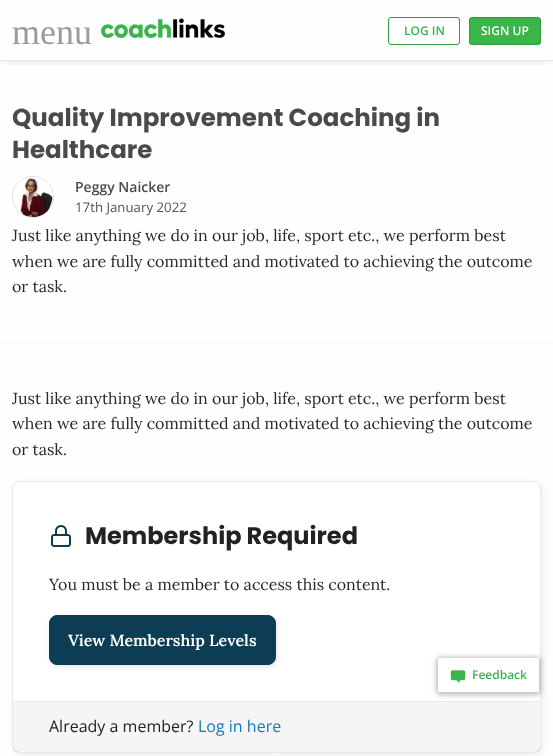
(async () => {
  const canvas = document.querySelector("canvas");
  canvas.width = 553;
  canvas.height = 756;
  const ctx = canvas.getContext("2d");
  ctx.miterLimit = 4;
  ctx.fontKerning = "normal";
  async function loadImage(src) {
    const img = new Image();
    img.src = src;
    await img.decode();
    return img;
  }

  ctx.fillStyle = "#fefefe";
  ctx.fillRect(0, 0, 553, 756);
  ctx.save();
  ctx.beginPath();
  ctx.rect(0, 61, 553, 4);
  ctx.clip();
  ctx.fillStyle = "rgba(0, 0, 0, 0.1)";
  ctx.filter = "blur(5px)";
  ctx.beginPath();
  ctx.rect(0, 0, 553, 61);
  ctx.fill();
  ctx.filter = "none";
  ctx.restore();
  ctx.fillStyle = "#e5e5e5";
  ctx.fillRect(0, 60, 553, 1);
  ctx.drawImage(await loadImage("img/1.png"), 100, 18, 125, 21);
  ctx.beginPath();
  ctx.roundRect(388.5, 17.5, 71, 27, 2.5);
  ctx.strokeStyle = "#309c3f";
  ctx.stroke();
  ctx.fillStyle = "#3ab54a";
  ctx.beginPath();
  ctx.roundRect(469.5, 17.5, 71, 27, 2.5);
  ctx.fill();
  ctx.stroke();
  ctx.fillStyle = "#fafafa";
  ctx.fillRect(0, 342, 553, 2);
  ctx.beginPath();
  ctx.arc(33, 197, 20.5, 0, Math.PI * 2);
  ctx.strokeStyle = "#e0e0e0";
  ctx.stroke();
  ctx.drawImage(await loadImage("img/2.png"), 13, 177, 40, 40);
  ctx.fillStyle = "rgba(0, 0, 0, 0.07)";
  ctx.filter = "blur(3.5px)";
  ctx.beginPath();
  ctx.roundRect(14, 483, 529, 272, 8);
  ctx.fill();
  ctx.filter = "none";
  ctx.fillStyle = "#ffffff";
  ctx.beginPath();
  ctx.roundRect(12.5, 481.5, 528, 271, 7.5);
  ctx.fill();
  ctx.strokeStyle = "#e8e8e8";
  ctx.stroke();
  ctx.drawImage(await loadImage("img/3.png"), 51, 525, 20, 22);
  ctx.fillStyle = "rgba(0, 0, 0, 0.1)";
  ctx.filter = "blur(2px)";
  ctx.beginPath();
  ctx.roundRect(50, 617, 227, 50, 8);
  ctx.fill();
  ctx.filter = "none";
  ctx.fillStyle = "#0c3d54";
  ctx.beginPath();
  ctx.roundRect(49.5, 615.5, 226, 49, 7.5);
  ctx.fill();
  ctx.strokeStyle = "#0c3d54";
  ctx.stroke();
  ctx.fillStyle = "rgba(0, 0, 0, 0.04)";
  ctx.fillRect(13, 702, 527, 50);
  ctx.fillStyle = "#e8e8e8";
  ctx.fillRect(13, 701, 527, 1);
  ctx.fillStyle = "rgba(0, 0, 0, 0.25)";
  ctx.filter = "blur(2.5px)";
  ctx.beginPath();
  ctx.roundRect(436, 657, 105, 38, 5);
  ctx.fill();
  ctx.filter = "none";
  ctx.fillStyle = "#ffffff";
  ctx.beginPath();
  ctx.roundRect(438, 658, 101, 34, [3, 3, 0, 0]);
  ctx.fill();
  ctx.drawImage(await loadImage("img/4.png"), 450, 670, 16, 13);
  ctx.font = "36px Liberation Serif";
  ctx.fillStyle = "#999c9f";
  ctx.fillText("menu", 12, 44);
  ctx.font = "600 12px Open Sans";
  ctx.fillStyle = "#3ab54a";
  ctx.fillText("LOG IN", 404, 35);
  ctx.fillStyle = "#ffffff";
  ctx.fillText("SIGN UP", 481, 35);
  ctx.font = "bold 24.5px Poppins";
  ctx.fillStyle = "#4a4a4a";
  ctx.fillText("Quality Improvement Coaching in", 12, 126);
  ctx.fillText("Healthcare", 12, 158);
  ctx.font = "600 14px Open Sans";
  ctx.fillText("Peggy Naicker", 75, 192);
  ctx.font = "13.25px Open Sans";
  ctx.fillStyle = "#545454";
  ctx.fillText("17th January 2022", 75, 212);
  ctx.font = "16px Lora";
  ctx.fillStyle = "#292929";
  for (const [text, x, y] of [
    ["Just like anything we do in our job, life, sport etc., we perform best", 12, 241],
    ["when we are fully committed and motivated to achieving the outcome", 12, 267],
    ["or task.", 12, 292],
    ["Just like anything we do in our job, life, sport etc., we perform best", 12, 404],
    ["when we are fully committed and motivated to achieving the outcome", 12, 429],
    ["or task.", 12, 455],
  ]) {
    ctx.fillText(text, x, y);
  }
  ctx.font = "bold 24px Poppins";
  ctx.fillStyle = "#222222";
  ctx.fillText("Membership Required", 85, 544);
  ctx.font = "16px Lora";
  ctx.fillStyle = "#292929";
  ctx.fillText("You must be a member to access this content.", 49, 590);
  ctx.font = "600 16px Lora";
  ctx.fillStyle = "#ffffff";
  ctx.fillText("View Membership Levels", 68, 646);
  ctx.font = "16px Open Sans";
  ctx.fillStyle = "#222222";
  ctx.fillText("Already a member?", 49, 732);
  ctx.fillStyle = "#1779ba";
  ctx.fillText("Log in here", 198, 732);
  ctx.font = "600 12px Open Sans";
  ctx.fillStyle = "#3ab54a";
  ctx.fillText("Feedback", 472, 679);
})();
